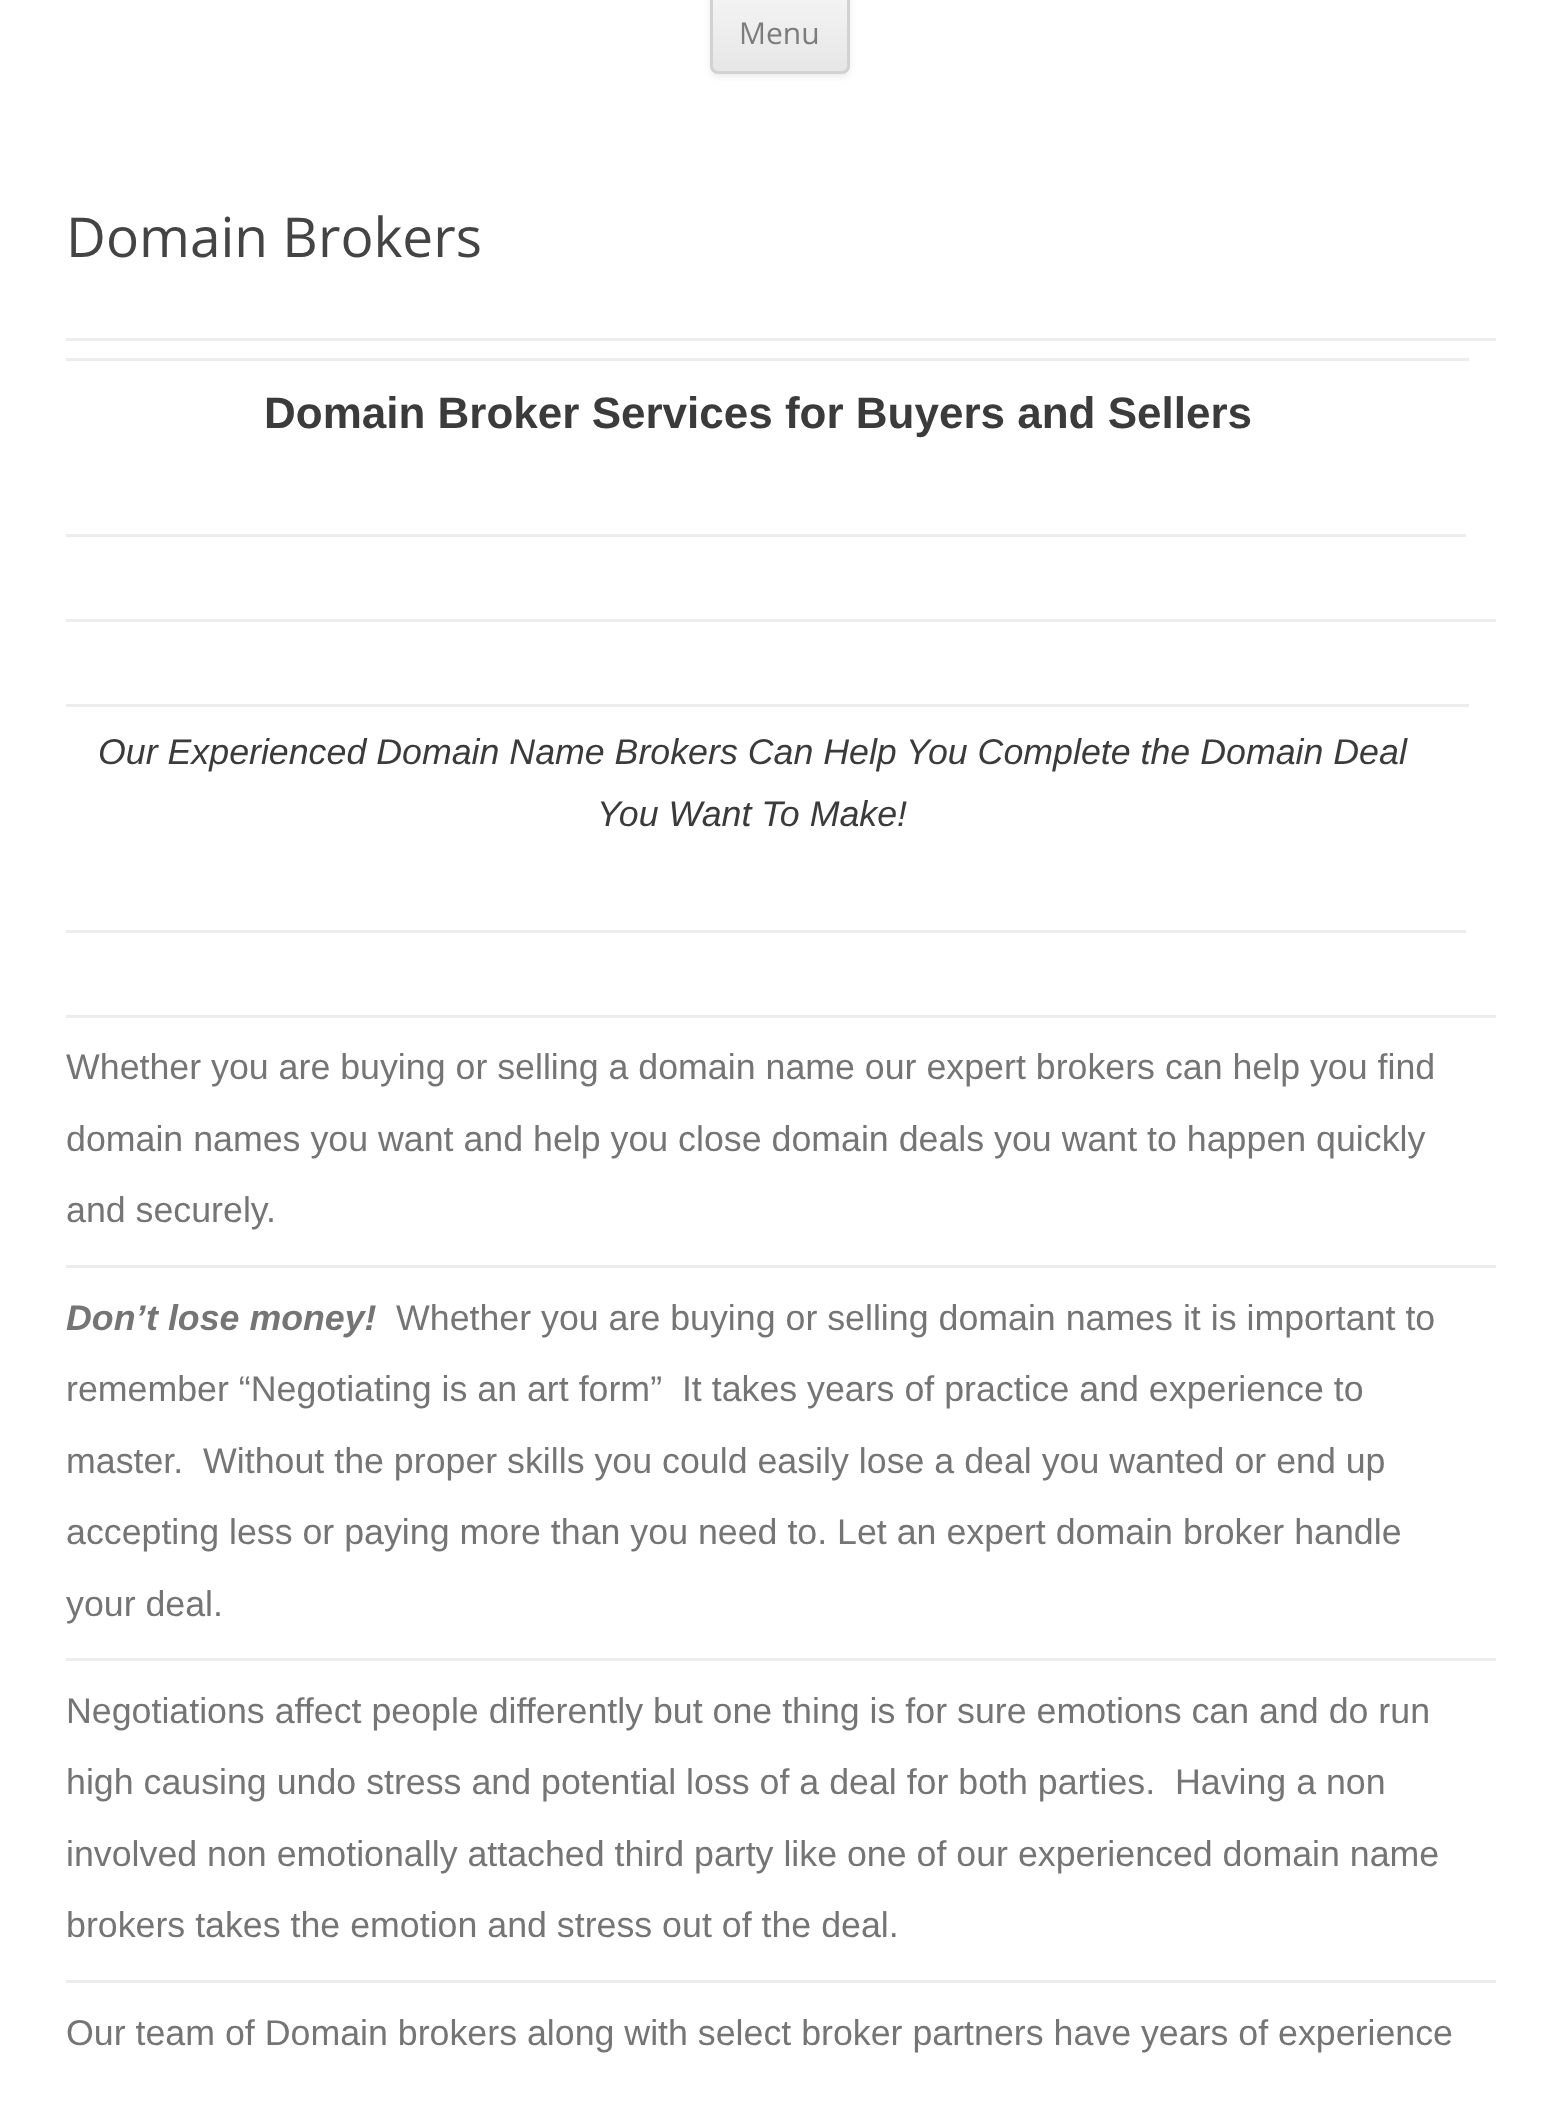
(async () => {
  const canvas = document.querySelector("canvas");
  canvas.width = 1559;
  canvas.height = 2105;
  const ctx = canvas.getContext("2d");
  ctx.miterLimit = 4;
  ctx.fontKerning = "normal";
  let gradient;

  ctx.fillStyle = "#ffffff";
  ctx.fillRect(0, 0, 1559, 2105);
  ctx.fillStyle = "rgba(64, 64, 64, 0.1)";
  ctx.filter = "blur(3px)";
  ctx.beginPath();
  ctx.roundRect(710, -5, 140, 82, 8);
  ctx.fill();
  ctx.filter = "none";
  ctx.save();
  ctx.beginPath();
  ctx.roundRect(710, -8, 140, 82, 8);
  ctx.clip();
  gradient = ctx.createLinearGradient(780, -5.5, 780, 72);
  gradient.addColorStop(0, "#f4f4f4");
  gradient.addColorStop(1, "#e6e6e6");
  ctx.fillStyle = gradient;
  ctx.fillRect(710, 0, 140, 72);
  ctx.restore();
  ctx.beginPath();
  ctx.roundRect(711.5, -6.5, 137, 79, 6.5);
  ctx.strokeStyle = "#d2d2d2";
  ctx.lineWidth = 3;
  ctx.stroke();
  for (const [x, y, w, h, color] of [
    [66, 338, 1430, 3, "#ededed"],
    [66, 534, 1400, 3, "#ededed"],
    [66, 358, 1403, 3, "#ededed"],
    [66, 619, 1430, 3, "#ededed"],
    [66, 930, 1400, 3, "#ededed"],
    [66, 704, 1403, 3, "#ededed"],
    [66, 1015, 1430, 3, "#ededed"],
    [66, 1265, 1430, 3, "#ededed"],
    [66, 1658, 1430, 3, "#ededed"],
    [66, 1980, 1430, 3, "#ededed"],
  ]) {
    ctx.fillStyle = color;
    ctx.fillRect(x, y, w, h);
  }
  ctx.font = "30px Open Sans";
  ctx.fillStyle = "#7c7c7c";
  ctx.fillText("Menu", 739, 44);
  ctx.font = "55px Open Sans";
  ctx.fillStyle = "#444444";
  ctx.fillText("Domain Brokers", 66, 257);
  ctx.font = "bold 44px Liberation Sans";
  ctx.fillStyle = "#3b3b3b";
  ctx.fillText("Domain Broker Services for Buyers and Sellers", 264, 428);
  ctx.font = "italic 35.75px Liberation Sans";
  ctx.fillText("Our Experienced Domain Name Brokers Can Help You Complete the Domain Deal", 98, 764);
  ctx.fillText("You Want To Make!", 597, 826);
  ctx.font = "35.75px Liberation Sans";
  ctx.fillStyle = "#757575";
  for (const [text, x, y] of [
    ["Whether you are buying or selling a domain name our expert brokers can help you find", 66, 1079],
    ["domain names you want and help you close domain deals you want to happen quickly", 66, 1151],
    ["and securely.", 66, 1222],
  ]) {
    ctx.fillText(text, x, y);
  }
  ctx.font = "italic bold 35.75px Liberation Sans";
  ctx.fillText("Don’t lose money!", 66, 1330);
  ctx.font = "35.75px Liberation Sans";
  for (const [text, x, y] of [
    ["Whether you are buying or selling domain names it is important to", 396, 1330],
    ["remember “Negotiating is an art form”  It takes years of practice and experience to", 66, 1401],
    ["master.  Without the proper skills you could easily lose a deal you wanted or end up", 66, 1473],
    ["accepting less or paying more than you need to. Let an expert domain broker handle", 66, 1544],
    ["your deal.", 66, 1616],
    ["Negotiations affect people differently but one thing is for sure emotions can and do run", 66, 1723],
    ["high causing undo stress and potential loss of a deal for both parties.  Having a non", 66, 1794],
    ["involved non emotionally attached third party like one of our experienced domain name", 66, 1866],
    ["brokers takes the emotion and stress out of the deal.", 66, 1937],
    ["Our team of Domain brokers along with select broker partners have years of experience", 66, 2045],
  ]) {
    ctx.fillText(text, x, y);
  }
})();
